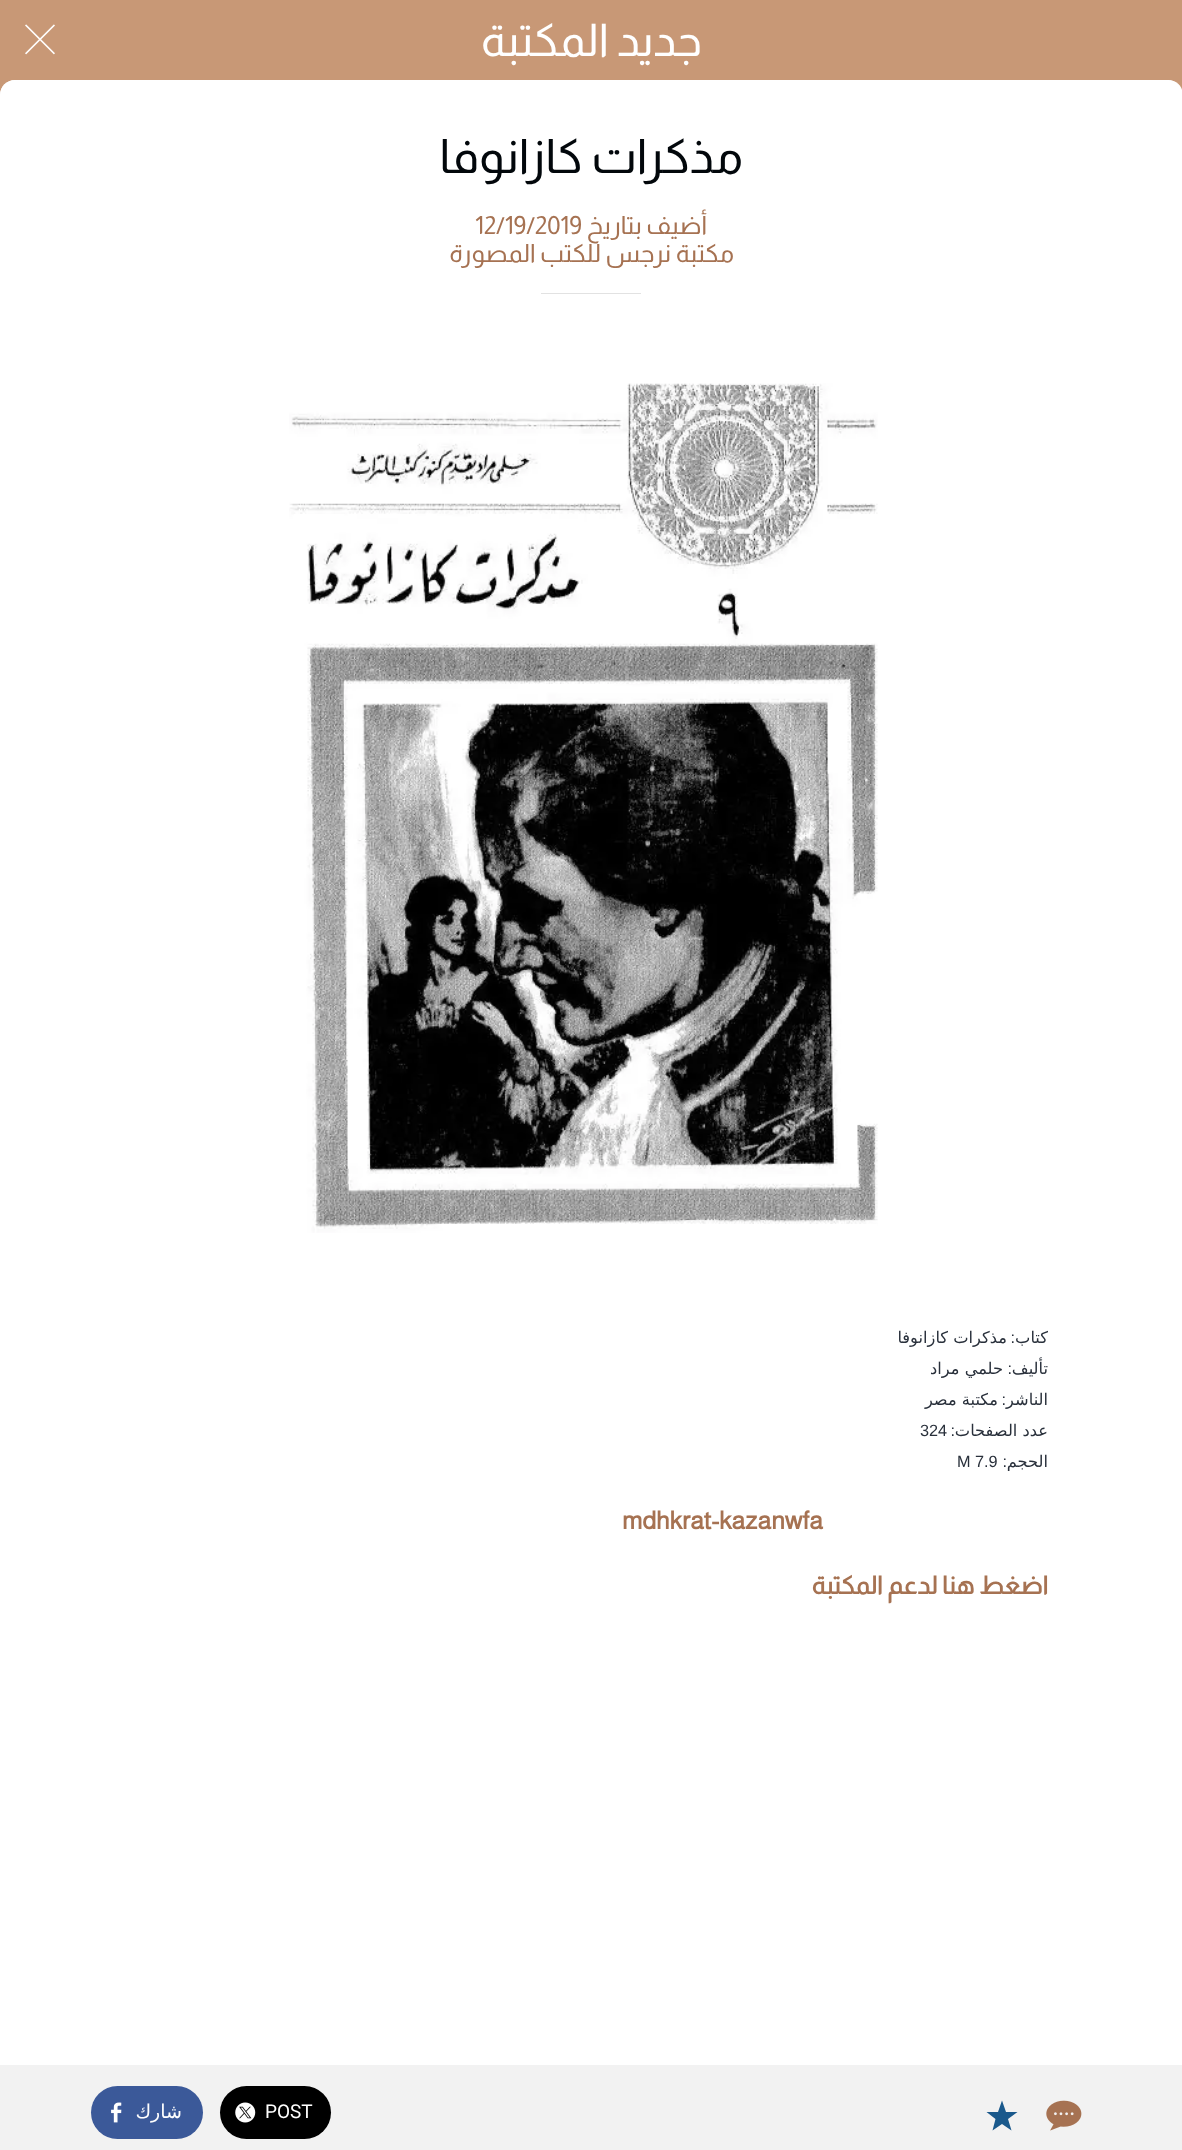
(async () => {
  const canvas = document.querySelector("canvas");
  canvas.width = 1182;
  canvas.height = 2150;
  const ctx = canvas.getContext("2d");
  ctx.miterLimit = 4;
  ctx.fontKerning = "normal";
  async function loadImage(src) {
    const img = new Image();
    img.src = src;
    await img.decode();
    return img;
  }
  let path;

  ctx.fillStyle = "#f2f2f2";
  ctx.fillRect(0, 0, 1182, 2150);
  ctx.fillStyle = "#c89876";
  path = new Path2D("M15 65C7 65 0 72 0 80V95C0 87 7 80 15 80H1168C1176 80 1182 87 1182 95V2050H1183V80C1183 72 1176 65 1168 65Z");
  ctx.fill(path);
  ctx.fillRect(0, 0, 1182, 80);
  ctx.drawImage(await loadImage("img/1.png"), 25, 24, 30, 31);
  ctx.fillStyle = "#ffffff";
  path = new Path2D("M15 80H1168C1176.5 80 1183 86.5 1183 95V2065H0V95C0 86.5 6.5 80 15 80Z");
  ctx.fill(path);
  ctx.fillStyle = "#e2e2e2";
  ctx.fillRect(541, 293, 100, 1);
  ctx.drawImage(await loadImage("img/2.png"), 289, 383, 589, 850);
  ctx.drawImage(await loadImage("img/3.png"), 1046, 2100, 36, 31);
  ctx.fillStyle = "#1a598c";
  path = new Path2D("M1017.5 2112H1006L1002 2100.5L998 2112H986.5L995.5 2119L992.5 2130.5L1002 2124L1011.5 2130.5L1008 2119Z");
  ctx.fill(path);
  ctx.fillStyle = "#000000";
  ctx.beginPath();
  ctx.roundRect(220, 2086, 111, 53, 26.5);
  ctx.fill();
  ctx.drawImage(await loadImage("img/4.png"), 235, 2102, 21, 21);
  ctx.fillStyle = "#3b5999";
  ctx.beginPath();
  ctx.roundRect(91, 2086, 112, 53, 26.5);
  ctx.fill();
  ctx.drawImage(await loadImage("img/5.png"), 111, 2102, 11, 21);
  ctx.direction = "rtl";
  ctx.font = "45px Almarai";
  ctx.fillStyle = "#ffffff";
  ctx.fillText("جديد المكتبة", 702, 56);
  ctx.font = "47.5px Almarai";
  ctx.fillStyle = "#02070b";
  ctx.fillText("مذكرات كازانوفا", 743, 173);
  ctx.font = "25px Almarai";
  ctx.fillStyle = "#a67252";
  ctx.fillText("أضيف بتاريخ", 707, 234);
  ctx.direction = "ltr";
  ctx.fillText("12/19/2019", 475, 234);
  ctx.direction = "rtl";
  ctx.fillText("مكتبة نرجس للكتب المصورة", 734, 262);
  ctx.font = "16.25px DejaVu Sans";
  ctx.fillStyle = "#29303b";
  ctx.fillText("كتاب", 1048, 1343);
  ctx.font = "16.25px Liberation Sans";
  ctx.fillText(":", 1015, 1343);
  ctx.font = "16.25px DejaVu Sans";
  ctx.fillText("مذكرات كازانوفا", 1007, 1343);
  ctx.fillText("تأليف", 1048, 1374);
  ctx.font = "16.25px Liberation Sans";
  ctx.fillText(":", 1012, 1374);
  ctx.font = "16.25px DejaVu Sans";
  ctx.fillText("حلمي مراد", 1003, 1374);
  ctx.fillText("الناشر", 1048, 1405);
  ctx.font = "16.25px Liberation Sans";
  ctx.fillText(":", 1006, 1405);
  ctx.font = "16.25px DejaVu Sans";
  ctx.fillText("مكتبة مصر", 998, 1405);
  ctx.fillText("عدد الصفحات", 1048, 1436);
  ctx.font = "16.25px Liberation Sans";
  ctx.fillText(":", 955, 1436);
  ctx.direction = "ltr";
  ctx.fillText("324", 920, 1436);
  ctx.direction = "rtl";
  ctx.font = "16.25px DejaVu Sans";
  ctx.fillText("الحجم", 1048, 1467);
  ctx.font = "16.25px Liberation Sans";
  ctx.fillText(":", 1007, 1467);
  ctx.direction = "ltr";
  ctx.fillText("M 7.9", 957, 1467);
  ctx.font = "bold 25px Almarai";
  ctx.fillStyle = "#a67252";
  ctx.fillText("mdhkrat-kazanwfa", 622, 1529);
  ctx.direction = "rtl";
  ctx.fillText("اضغط هنا لدعم المكتبة", 1048, 1594);
  ctx.direction = "ltr";
  ctx.font = "19px Roboto";
  ctx.fillStyle = "#ffffff";
  ctx.fillText("POST", 265, 2118);
  ctx.direction = "rtl";
  ctx.font = "19px DejaVu Sans";
  ctx.fillText("شارك", 182, 2118);
})();
